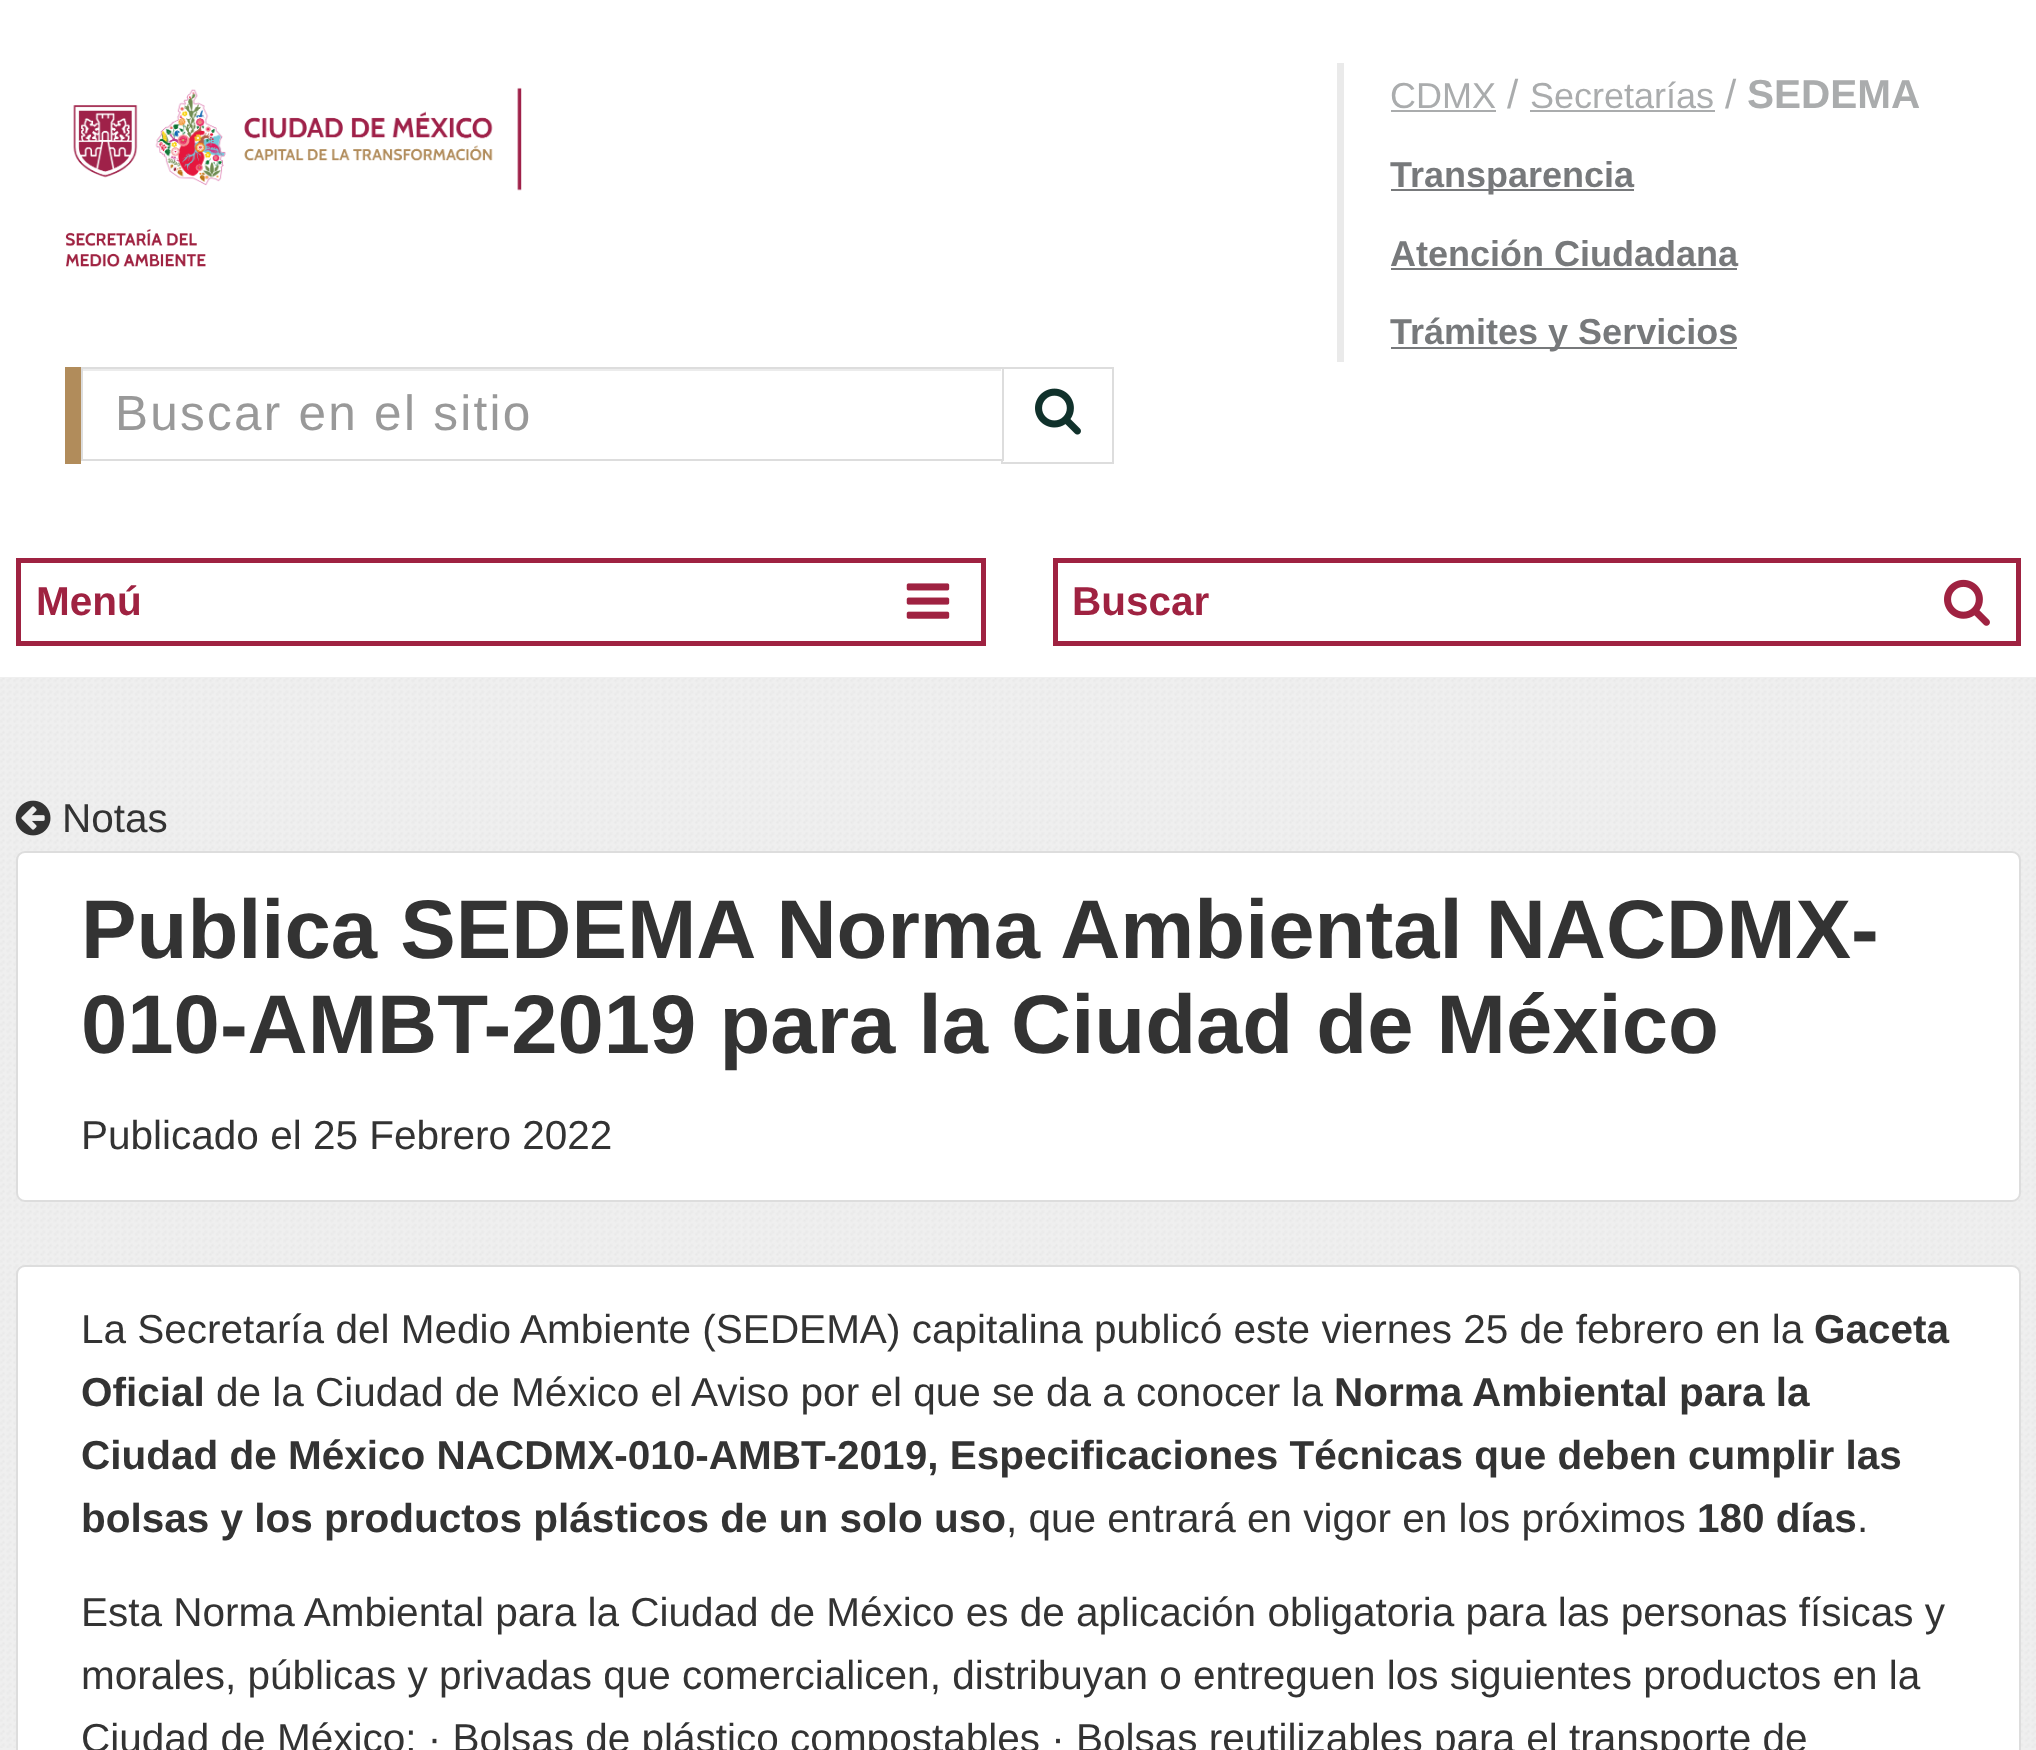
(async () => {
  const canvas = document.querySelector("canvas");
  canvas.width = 2036;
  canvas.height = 1750;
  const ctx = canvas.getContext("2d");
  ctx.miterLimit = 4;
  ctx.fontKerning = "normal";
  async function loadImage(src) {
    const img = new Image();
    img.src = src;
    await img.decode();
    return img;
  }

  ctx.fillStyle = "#ffffff";
  ctx.fillRect(0, 0, 2036, 1750);
  for (const [x, y, w, h, color] of [
    [1337, 63, 7, 299, "#eaeaea"],
    [1391, 110, 105, 2, "#aaacad"],
    [1530, 110, 185, 2, "#aaacad"],
    [1391, 189, 243, 2, "#77797b"],
    [1391, 268, 346, 2, "#77797b"],
    [1391, 347, 346, 2, "#77797b"],
  ]) {
    ctx.fillStyle = color;
    ctx.fillRect(x, y, w, h);
  }
  ctx.drawImage(await loadImage("img/1.png"), 73, 87, 449, 104);
  ctx.drawImage(await loadImage("img/2.png"), 65, 229, 141, 38);
  ctx.fillStyle = "#b18c5b";
  ctx.fillRect(65, 367, 16, 97);
  ctx.strokeStyle = "#dddddd";
  ctx.lineWidth = 2;
  ctx.strokeRect(1002, 368, 111, 95);
  ctx.fillStyle = "#ffffff";
  ctx.fillRect(1001, 369, 1, 90);
  ctx.fillStyle = "#ececec";
  ctx.fillRect(83, 369, 918, 2);
  ctx.strokeRect(82, 368, 921, 92);
  ctx.drawImage(await loadImage("img/3.png"), 1035, 388, 46, 47);
  ctx.strokeStyle = "#9f2241";
  ctx.lineWidth = 5;
  ctx.strokeRect(18.5, 560.5, 965, 83);
  ctx.drawImage(await loadImage("img/4.png"), 906, 583, 44, 36);
  ctx.strokeRect(1055.5, 560.5, 963, 83);
  ctx.drawImage(await loadImage("img/5.png"), 1944, 579, 46, 47);
  ctx.fillStyle = "#efefef";
  ctx.fillRect(0, 677, 2036, 1073);
  ctx.drawImage(await loadImage("img/6.png"), 0, 678, 2036, 1070);
  ctx.drawImage(await loadImage("img/7.png"), 15, 800, 36, 36);
  ctx.fillStyle = "#ffffff";
  ctx.beginPath();
  ctx.roundRect(17, 852, 2003, 349, 8);
  ctx.fill();
  ctx.strokeStyle = "#dddddd";
  ctx.lineWidth = 2;
  ctx.stroke();
  ctx.beginPath();
  ctx.roundRect(17, 1266, 2003, 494, 8);
  ctx.fill();
  ctx.stroke();
  ctx.font = "36px Liberation Sans";
  ctx.fillStyle = "#aaacad";
  ctx.fillText("CDMX", 1390, 108);
  ctx.font = "40.5px Liberation Sans";
  ctx.fillText("/", 1507, 108);
  ctx.font = "36px Liberation Sans";
  ctx.fillText("Secretarías", 1530, 108);
  ctx.font = "40.5px Liberation Sans";
  ctx.fillText("/", 1725, 108);
  ctx.font = "bold 40.5px Liberation Sans";
  ctx.fillText("SEDEMA", 1747, 108);
  ctx.font = "bold 36px Liberation Sans";
  ctx.fillStyle = "#77797b";
  for (const [text, x, y] of [
    ["Transparencia", 1390, 187],
    ["Atención Ciudadana", 1390, 266],
    ["Trámites y Servicios", 1390, 344],
  ]) {
    ctx.fillText(text, x, y);
  }
  ctx.letterSpacing = "2.25px";
  ctx.font = "49.5px Liberation Sans";
  ctx.fillStyle = "#999999";
  ctx.fillText("Buscar en el sitio", 115, 430);
  ctx.letterSpacing = "0px";
  ctx.font = "bold 40.5px Liberation Sans";
  ctx.fillStyle = "#9f2241";
  ctx.fillText("Menú", 36, 615);
  ctx.fillText("Buscar", 1072, 615);
  ctx.font = "40.5px Liberation Sans";
  ctx.fillStyle = "#333333";
  ctx.fillText("Notas", 62, 832);
  ctx.font = "bold 83.25px Liberation Sans";
  ctx.fillText("Publica SEDEMA Norma Ambiental NACDMX-", 81, 958);
  ctx.fillText("010-AMBT-2019 para la Ciudad de México", 81, 1053);
  ctx.font = "40.5px Liberation Sans";
  ctx.fillText("Publicado el 25 Febrero 2022", 81, 1149);
  ctx.fillText("La Secretaría del Medio Ambiente (SEDEMA) capitalina publicó este viernes 25 de febrero en la", 81, 1343);
  ctx.font = "bold 40.5px Liberation Sans";
  ctx.fillText("Gaceta", 1814, 1343);
  ctx.fillText("Oficial", 81, 1406);
  ctx.font = "40.5px Liberation Sans";
  ctx.fillText("de la Ciudad de México el Aviso por el que se da a conocer la", 216, 1406);
  ctx.font = "bold 40.5px Liberation Sans";
  for (const [text, x, y] of [
    ["Norma Ambiental para la", 1334, 1406],
    ["Ciudad de México NACDMX-010-AMBT-2019, Especificaciones Técnicas que deben cumplir las", 81, 1469],
    ["bolsas y los productos plásticos de un solo uso", 81, 1532],
  ]) {
    ctx.fillText(text, x, y);
  }
  ctx.font = "40.5px Liberation Sans";
  ctx.fillText(", que entrará en vigor en los próximos", 1006, 1532);
  ctx.font = "bold 40.5px Liberation Sans";
  ctx.fillText("180 días", 1697, 1532);
  ctx.font = "40.5px Liberation Sans";
  for (const [text, x, y] of [
    [".", 1857, 1532],
    ["Esta Norma Ambiental para la Ciudad de México es de aplicación obligatoria para las personas físicas y", 81, 1626],
    ["morales, públicas y privadas que comercialicen, distribuyan o entreguen los siguientes productos en la", 81, 1689],
    ["Ciudad de México: · Bolsas de plástico compostables · Bolsas reutilizables para el transporte de", 81, 1752],
  ]) {
    ctx.fillText(text, x, y);
  }
})();
